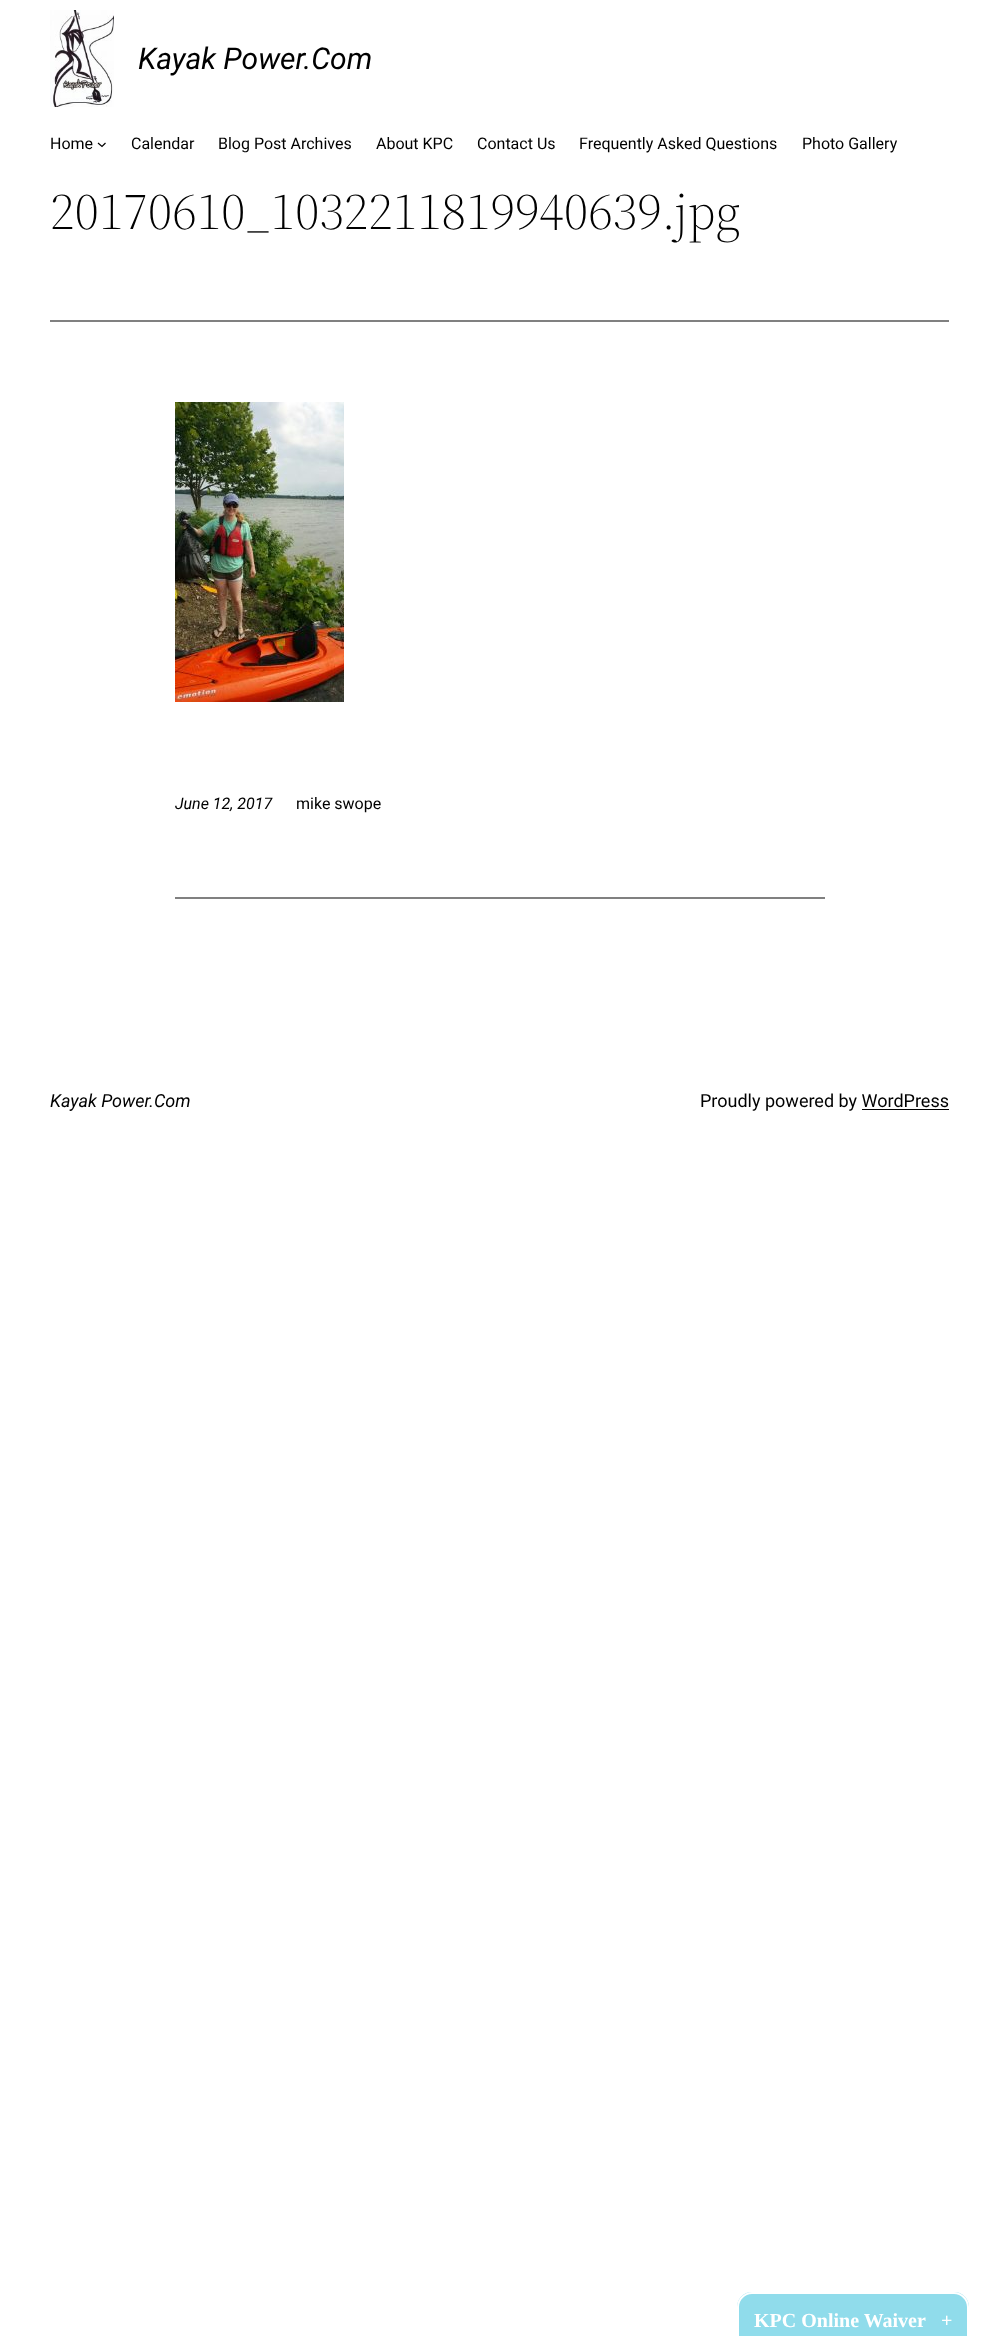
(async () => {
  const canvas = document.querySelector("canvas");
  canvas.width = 999;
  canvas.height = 2336;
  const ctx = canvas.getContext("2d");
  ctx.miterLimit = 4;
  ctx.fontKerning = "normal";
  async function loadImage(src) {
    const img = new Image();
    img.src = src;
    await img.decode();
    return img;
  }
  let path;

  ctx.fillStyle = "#ffffff";
  ctx.fillRect(0, 0, 999, 2336);
  ctx.drawImage(await loadImage("img/1.png"), 50, 10, 64, 97);
  path = new Path2D("M98 143L102 146.5L105.5 143");
  ctx.strokeStyle = "#000000";
  ctx.lineWidth = 1.2;
  ctx.stroke(path);
  ctx.fillStyle = "#808080";
  ctx.fillRect(50, 320, 899, 2);
  ctx.drawImage(await loadImage("img/2.png"), 175, 402, 169, 300);
  ctx.fillRect(175, 897, 650, 2);
  ctx.fillStyle = "#000000";
  ctx.fillRect(862, 1109, 87, 1);
  ctx.fillStyle = "#90dceb";
  ctx.beginPath();
  ctx.roundRect(737, 2292, 232, 44, [15, 15, 0, 0]);
  ctx.fill();
  ctx.fillStyle = "#ffffff";
  path = new Path2D("M752 2292H954C962 2292 969 2299 969 2307V2336H737V2307C737 2299 744 2292 752 2292ZM752 2294H954C961 2294 967 2300 967 2307V2336H739V2307C739 2300 745 2294 752 2294Z");
  ctx.fill(path, "evenodd");
  ctx.font = "italic 30px Roboto";
  ctx.fillStyle = "#000000";
  ctx.fillText("Kayak Power.Com", 138, 69);
  ctx.font = "16px Roboto";
  for (const [text, x, y] of [
    ["Home", 50, 149],
    ["Calendar", 131, 149],
    ["Blog Post Archives", 218, 149],
    ["About KPC", 376, 149],
    ["Contact Us", 477, 149],
    ["Frequently Asked Questions", 579, 149],
    ["Photo Gallery", 802, 149],
  ]) {
    ctx.fillText(text, x, y);
  }
  ctx.font = "300 52px 'Source Serif 4'";
  ctx.fillText("20170610_1032211819940639.jpg", 50, 229);
  ctx.font = "italic 16px Roboto";
  ctx.fillText("June 12, 2017", 175, 809);
  ctx.font = "16px Roboto";
  ctx.fillText("mike swope", 296, 809);
  ctx.font = "italic 18px Roboto";
  ctx.fillText("Kayak Power.Com", 50, 1107);
  ctx.font = "18px Roboto";
  ctx.fillText("Proudly powered by WordPress", 700, 1107);
  ctx.font = "bold 20px Liberation Serif";
  ctx.fillStyle = "#ffffff";
  ctx.fillText("KPC Online Waiver", 754, 2327);
  ctx.fillText("+", 941, 2327);
})();
